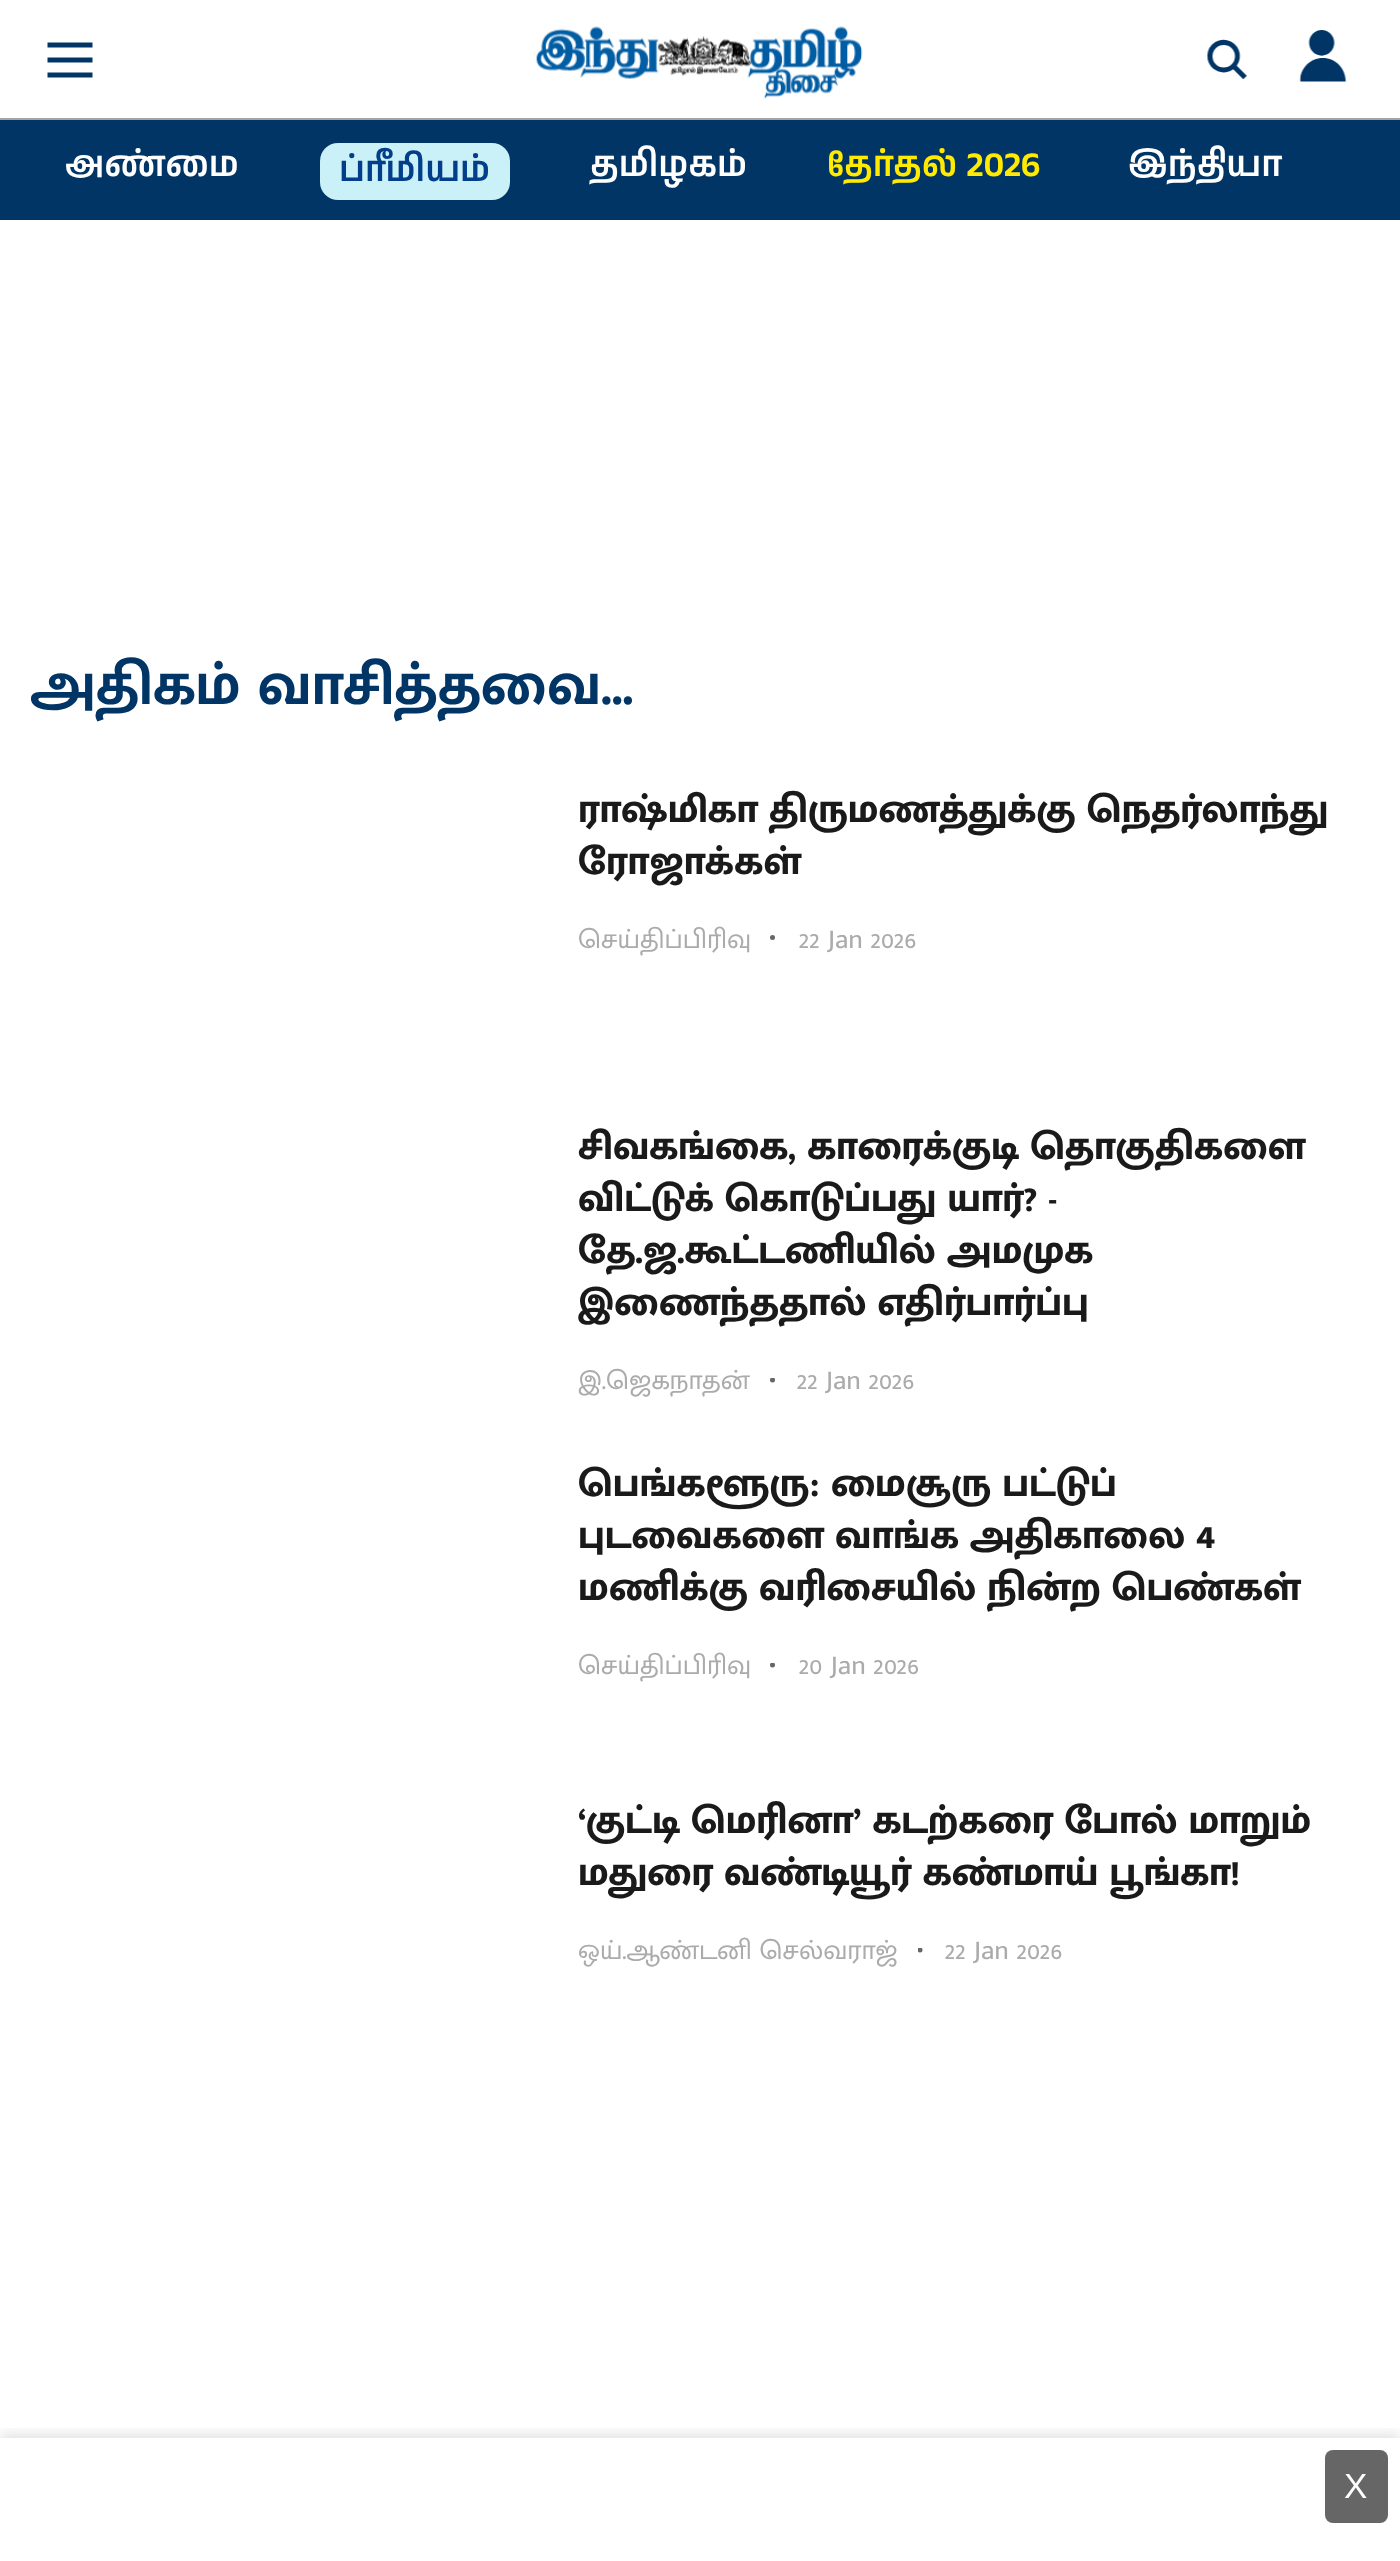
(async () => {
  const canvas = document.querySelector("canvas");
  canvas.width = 1400;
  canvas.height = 2561;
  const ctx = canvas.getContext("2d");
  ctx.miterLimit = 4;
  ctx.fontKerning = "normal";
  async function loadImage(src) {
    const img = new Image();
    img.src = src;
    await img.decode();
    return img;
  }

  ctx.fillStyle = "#ffffff";
  ctx.fillRect(0, 0, 1400, 2561);
  ctx.fillStyle = "#a4a4a4";
  ctx.fillRect(0, 118, 1400, 2);
  ctx.drawImage(await loadImage("img/1.png"), 47, 42, 46, 36);
  ctx.drawImage(await loadImage("img/2.png"), 536, 26, 327, 73);
  ctx.drawImage(await loadImage("img/3.png"), 1206, 39, 42, 41);
  ctx.drawImage(await loadImage("img/4.png"), 1299, 30, 48, 52);
  ctx.fillStyle = "#003566";
  ctx.fillRect(0, 120, 1400, 100);
  ctx.fillStyle = "#caf0f8";
  ctx.beginPath();
  ctx.roundRect(320, 143, 190, 57, 18);
  ctx.fill();
  ctx.fillStyle = "#666666";
  ctx.beginPath();
  ctx.arc(772.5, 937.5, 2.5, 0, Math.PI * 2);
  ctx.fill();
  ctx.save();
  ctx.beginPath();
  ctx.rect(770, 1378, 8, 8);
  ctx.clip();
  ctx.beginPath();
  ctx.arc(772.5, 1380, 2.5, 0, Math.PI * 2);
  ctx.fill();
  ctx.restore();
  ctx.save();
  ctx.beginPath();
  ctx.rect(770, 1663, 8, 8);
  ctx.clip();
  ctx.beginPath();
  ctx.arc(772.5, 1665, 2.5, 0, Math.PI * 2);
  ctx.fill();
  ctx.restore();
  ctx.save();
  ctx.beginPath();
  ctx.rect(918, 1948, 8, 8);
  ctx.clip();
  ctx.beginPath();
  ctx.arc(920, 1950, 2.5, 0, Math.PI * 2);
  ctx.fill();
  ctx.restore();
  ctx.save();
  ctx.beginPath();
  ctx.rect(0, 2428, 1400, 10);
  ctx.clip();
  ctx.fillStyle = "rgba(0, 0, 0, 0.1)";
  ctx.filter = "blur(6px)";
  ctx.beginPath();
  ctx.rect(0, 2433, 1400, 125);
  ctx.fill();
  ctx.filter = "none";
  ctx.restore();
  ctx.beginPath();
  ctx.roundRect(1325, 2450, 63, 73, 8);
  ctx.fill();
  ctx.font = "600 35px Anek Tamil";
  ctx.fillStyle = "#ffffff";
  ctx.fillText("அண்மை", 65, 176);
  ctx.fillStyle = "#023e8a";
  ctx.fillText("ப்ரீமியம்", 339, 181);
  ctx.fillStyle = "#ffffff";
  ctx.fillText("தமிழகம்", 590, 176);
  ctx.fillStyle = "#ffea00";
  ctx.fillText("தேர்தல் 2026", 827, 176);
  ctx.fillStyle = "#ffffff";
  ctx.fillText("இந்தியா", 1128, 176);
  ctx.font = "bold 60px Mukta Malar";
  ctx.fillStyle = "#003566";
  ctx.fillText("அதிகம் வாசித்தவை...", 30, 704);
  ctx.font = "800 40px Mukta Malar";
  ctx.fillStyle = "#1a1a1a";
  ctx.fillText("ராஷ்மிகா திருமணத்துக்கு நெதர்லாந்து", 578, 822);
  ctx.fillText("ரோஜாக்கள்", 578, 874);
  ctx.font = "27.5px Mukta Malar";
  ctx.fillStyle = "#ababab";
  ctx.fillText("செய்திப்பிரிவு", 578, 948);
  ctx.fillText("22 Jan 2026", 799, 948);
  ctx.font = "800 40px Mukta Malar";
  ctx.fillStyle = "#1a1a1a";
  ctx.fillText("சிவகங்கை, காரைக்குடி தொகுதிகளை", 578, 1159);
  ctx.fillText("விட்டுக் கொடுப்பது யார்? -", 578, 1211);
  ctx.save();
  ctx.beginPath();
  ctx.rect(578, 1123, 792, 210);
  ctx.clip();
  ctx.fillText("தே.ஜ.கூட்டணியில் அமமுக", 578, 1263);
  ctx.restore();
  ctx.fillText("இணைந்ததால் எதிர்பார்ப்பு", 578, 1315);
  ctx.font = "27.5px Mukta Malar";
  ctx.fillStyle = "#ababab";
  ctx.fillText("இ.ஜெகநாதன்", 578, 1389);
  ctx.fillText("22 Jan 2026", 797, 1389);
  ctx.font = "800 40px Mukta Malar";
  ctx.fillStyle = "#1a1a1a";
  for (const [text, x, y] of [
    ["பெங்களூரு: மைசூரு பட்டுப்", 578, 1496],
    ["புடவைகளை வாங்க அதிகாலை 4", 578, 1548],
    ["மணிக்கு வரிசையில் நின்ற பெண்கள்", 578, 1600],
  ]) {
    ctx.fillText(text, x, y);
  }
  ctx.font = "27.5px Mukta Malar";
  ctx.fillStyle = "#ababab";
  ctx.fillText("செய்திப்பிரிவு", 578, 1674);
  ctx.fillText("20 Jan 2026", 799, 1674);
  ctx.font = "800 40px Mukta Malar";
  ctx.fillStyle = "#1a1a1a";
  ctx.fillText("‘குட்டி மெரினா’ கடற்கரை போல் மாறும்", 578, 1833);
  ctx.fillText("மதுரை வண்டியூர் கண்மாய் பூங்கா!", 578, 1885);
  ctx.font = "27.5px Mukta Malar";
  ctx.fillStyle = "#ababab";
  ctx.fillText("ஒய்.ஆண்டனி செல்வராஜ்", 578, 1959);
  ctx.fillText("22 Jan 2026", 945, 1959);
  ctx.font = "35px Liberation Sans";
  ctx.fillStyle = "#ffffff";
  ctx.fillText("X", 1344, 2498);
})();
